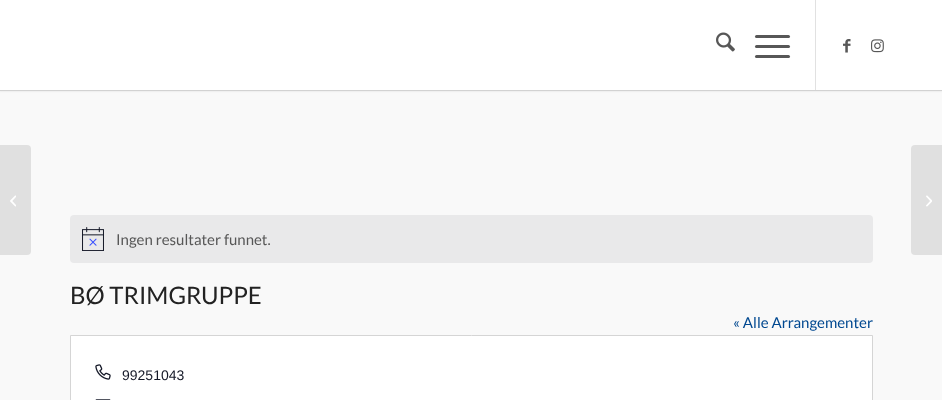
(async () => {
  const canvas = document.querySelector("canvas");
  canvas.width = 942;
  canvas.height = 400;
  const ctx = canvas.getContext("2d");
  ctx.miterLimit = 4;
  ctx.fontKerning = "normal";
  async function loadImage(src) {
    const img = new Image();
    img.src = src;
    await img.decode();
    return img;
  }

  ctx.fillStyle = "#f9f9f9";
  ctx.fillRect(0, 0, 942, 400);
  ctx.fillStyle = "#e1e1e1";
  ctx.fillRect(0, 90, 942, 1);
  ctx.fillStyle = "rgba(0, 0, 0, 0.1)";
  ctx.filter = "blur(1px)";
  ctx.beginPath();
  ctx.rect(-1, -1, 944, 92);
  ctx.fill();
  ctx.filter = "none";
  ctx.fillStyle = "#ffffff";
  ctx.fillRect(0, 0, 942, 90);
  ctx.fillStyle = "#e1e1e1";
  ctx.fillRect(815, 0, 1, 90);
  ctx.drawImage(await loadImage("img/1.png"), 716, 32, 19, 20);
  ctx.fillStyle = "#575757";
  ctx.beginPath();
  ctx.roundRect(755, 45, 35, 3, 1.5);
  ctx.fill();
  ctx.beginPath();
  ctx.roundRect(755, 35, 35, 3, 1.5);
  ctx.fill();
  ctx.beginPath();
  ctx.roundRect(755, 55, 35, 3, 1.5);
  ctx.fill();
  ctx.drawImage(await loadImage("img/2.png"), 843, 39, 8, 14);
  ctx.drawImage(await loadImage("img/3.png"), 871, 39, 13, 14);
  ctx.fillStyle = "#e0e0e0";
  ctx.beginPath();
  ctx.roundRect(0, 145, 31, 110, [0, 4, 4, 0]);
  ctx.fill();
  ctx.drawImage(await loadImage("img/4.png"), 10, 195, 6, 12);
  ctx.beginPath();
  ctx.roundRect(911, 145, 31, 110, [4, 0, 0, 4]);
  ctx.fill();
  ctx.drawImage(await loadImage("img/5.png"), 926, 195, 6, 12);
  ctx.fillStyle = "#e9e9ea";
  ctx.beginPath();
  ctx.roundRect(70, 215, 803, 48, 4);
  ctx.fill();
  ctx.drawImage(await loadImage("img/6.png"), 82, 227, 22, 24);
  ctx.fillStyle = "#ffffff";
  ctx.beginPath();
  ctx.rect(70.5, 335.5, 802, 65);
  ctx.fill();
  ctx.strokeStyle = "#d5d5d5";
  ctx.stroke();
  ctx.drawImage(await loadImage("img/7.png"), 95, 364, 16, 16);
  ctx.drawImage(await loadImage("img/8.png"), 95, 399, 16, 1);
  ctx.font = "15px Lato";
  ctx.fillStyle = "#575757";
  ctx.fillText("Ingen resultater funnet.", 116, 245);
  ctx.font = "24px Lato";
  ctx.fillStyle = "#222222";
  ctx.fillText("BØ TRIMGRUPPE", 70, 304);
  ctx.font = "15px Lato";
  ctx.fillStyle = "#004890";
  ctx.fillText("« Alle Arrangementer", 733, 328);
  ctx.font = "14px Liberation Sans";
  ctx.fillStyle = "#141827";
  ctx.fillText("99251043", 122, 380);
})();
